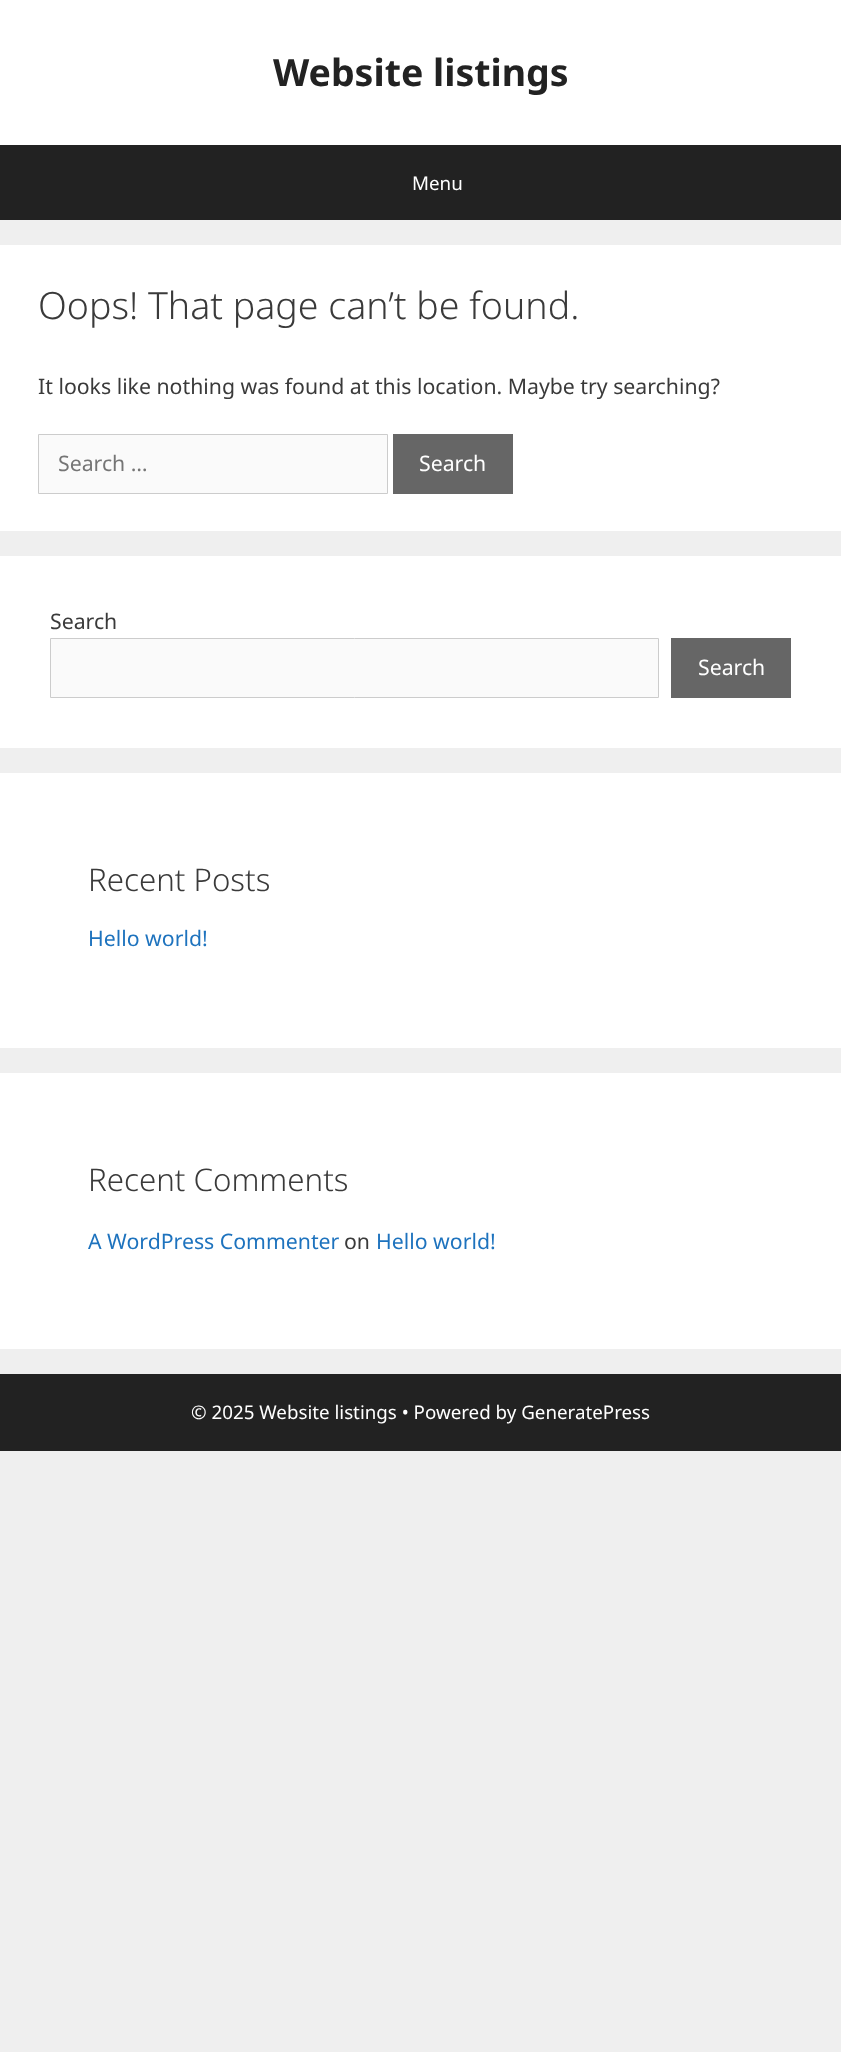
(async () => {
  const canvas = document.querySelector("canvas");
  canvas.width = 841;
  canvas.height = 2052;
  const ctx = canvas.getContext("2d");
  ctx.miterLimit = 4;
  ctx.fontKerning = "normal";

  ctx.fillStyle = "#efefef";
  ctx.fillRect(0, 0, 841, 2052);
  for (const [x, y, w, h, color] of [
    [0, 0, 841, 145, "#ffffff"],
    [0, 145, 841, 75, "#222222"],
    [0, 245, 841, 286, "#ffffff"],
  ]) {
    ctx.fillStyle = color;
    ctx.fillRect(x, y, w, h);
  }
  ctx.fillStyle = "#fafafa";
  ctx.beginPath();
  ctx.rect(38.5, 434.5, 349, 59);
  ctx.fill();
  ctx.strokeStyle = "#cccccc";
  ctx.stroke();
  ctx.fillStyle = "#666666";
  ctx.fillRect(393, 434, 120, 60);
  ctx.fillStyle = "#ffffff";
  ctx.fillRect(0, 556, 841, 192);
  ctx.fillStyle = "#fafafa";
  ctx.beginPath();
  ctx.rect(50.5, 638.5, 608, 59);
  ctx.fill();
  ctx.stroke();
  for (const [x, y, w, h, color] of [
    [671, 638, 120, 60, "#666666"],
    [0, 773, 841, 275, "#ffffff"],
    [0, 1073, 841, 276, "#ffffff"],
    [0, 1374, 841, 77, "#222222"],
  ]) {
    ctx.fillStyle = color;
    ctx.fillRect(x, y, w, h);
  }
  ctx.font = "bold 37.5px Noto Sans";
  ctx.fillText("Website listings", 273, 86);
  ctx.font = "18.75px Noto Sans";
  ctx.fillStyle = "#ffffff";
  ctx.fillText("Menu", 412, 190);
  ctx.font = "300 37.5px Noto Sans";
  ctx.fillStyle = "#3a3a3a";
  ctx.fillText("Oops! That page can’t be found.", 38, 319);
  ctx.font = "21.25px Noto Sans";
  ctx.fillText("It looks like nothing was found at this location. Maybe try searching?", 38, 394);
  ctx.fillStyle = "#757575";
  ctx.fillText("Search …", 58, 471);
  ctx.fillStyle = "#ffffff";
  ctx.fillText("Search", 419, 471);
  ctx.fillStyle = "#3a3a3a";
  ctx.fillText("Search", 50, 629);
  ctx.fillStyle = "#ffffff";
  ctx.fillText("Search", 698, 675);
  ctx.font = "300 31.25px Noto Sans";
  ctx.fillStyle = "#3a3a3a";
  ctx.fillText("Recent Posts", 88, 891);
  ctx.font = "21.25px Noto Sans";
  ctx.fillStyle = "#1e73be";
  ctx.fillText("Hello world!", 88, 946);
  ctx.font = "300 31.25px Noto Sans";
  ctx.fillStyle = "#3a3a3a";
  ctx.fillText("Recent Comments", 88, 1191);
  ctx.font = "21.25px Noto Sans";
  ctx.fillStyle = "#1e73be";
  ctx.fillText("A WordPress Commenter", 88, 1249);
  ctx.fillStyle = "#3a3a3a";
  ctx.fillText("on", 344, 1249);
  ctx.fillStyle = "#1e73be";
  ctx.fillText("Hello world!", 376, 1249);
  ctx.font = "18.75px Noto Sans";
  ctx.fillStyle = "#ffffff";
  ctx.fillText("© 2025 Website listings • Powered by GeneratePress", 191, 1419);
})();
